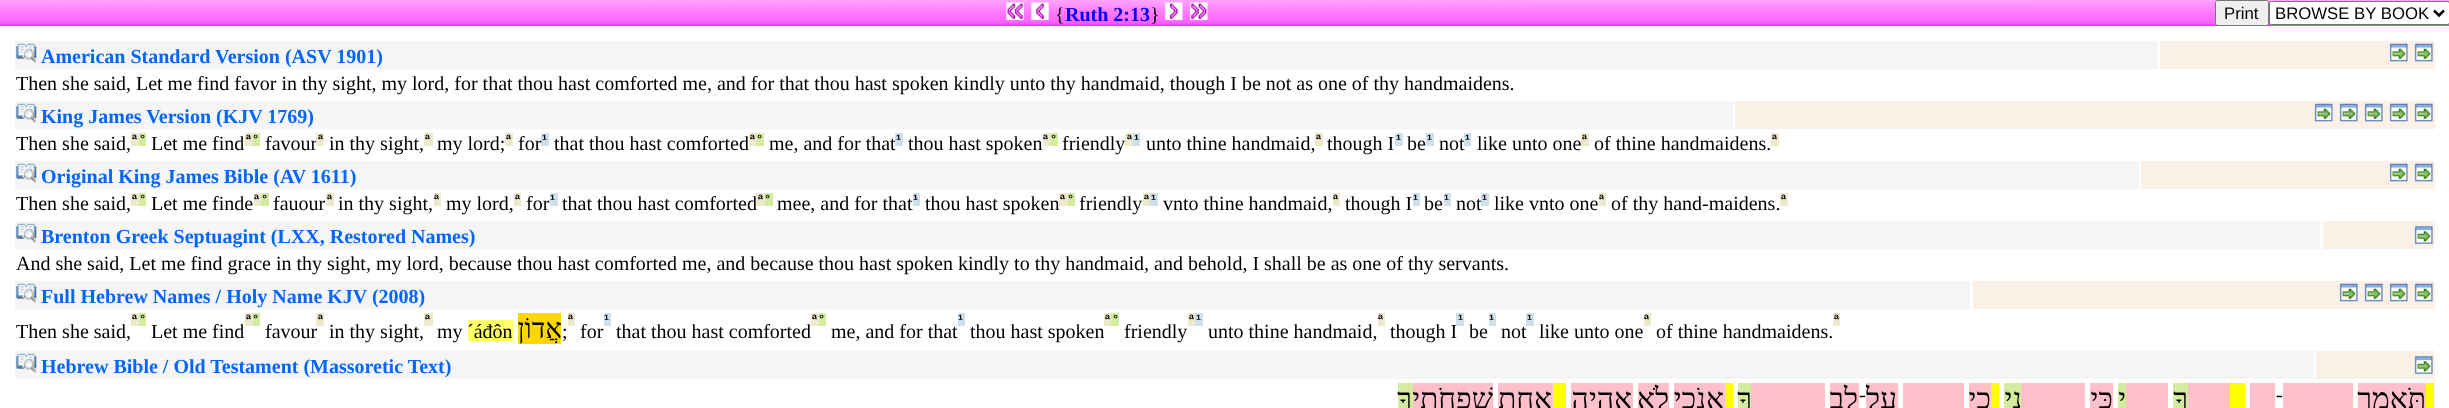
(async () => {
  const canvas = document.querySelector("canvas");
  canvas.width = 2449;
  canvas.height = 408;
  const ctx = canvas.getContext("2d");
  ctx.miterLimit = 4;
  ctx.fontKerning = "normal";
  async function loadImage(src) {
    const img = new Image();
    img.src = src;
    await img.decode();
    return img;
  }
  let path;

  ctx.fillStyle = "#ffffff";
  ctx.fillRect(0, 0, 2449, 408);
  ctx.drawImage(await loadImage("img/1.png"), 0, 0, 2449, 26);
  ctx.drawImage(await loadImage("img/2.png"), 1006, 2, 18, 19);
  ctx.drawImage(await loadImage("img/3.png"), 1031, 2, 18, 19);
  ctx.drawImage(await loadImage("img/4.png"), 1164, 2, 19, 19);
  ctx.drawImage(await loadImage("img/5.png"), 1189, 2, 19, 19);
  ctx.fillStyle = "#efefef";
  ctx.beginPath();
  ctx.roundRect(2215.5, 0.5, 53, 25, 2);
  ctx.fill();
  ctx.strokeStyle = "#767676";
  ctx.stroke();
  ctx.fillStyle = "#ffffff";
  ctx.beginPath();
  ctx.roundRect(2269.5, 1.5, 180, 23, 2);
  ctx.fill();
  ctx.stroke();
  path = new Path2D("M2434 10.5L2439 15.5L2444 10.5");
  ctx.strokeStyle = "#000000";
  ctx.lineWidth = 2.5;
  ctx.stroke(path);
  ctx.fillStyle = "#f5f5f5";
  ctx.fillRect(15, 41, 2143, 28);
  ctx.drawImage(await loadImage("img/6.png"), 16, 43, 21, 20);
  ctx.fillStyle = "#faf0e6";
  ctx.fillRect(2160, 41, 275, 28);
  ctx.drawImage(await loadImage("img/7.png"), 2389, 43, 19, 19);
  ctx.drawImage(await loadImage("img/7.png"), 2414, 43, 19, 19);
  ctx.fillStyle = "#f5f5f5";
  ctx.fillRect(15, 101, 1718, 28);
  ctx.drawImage(await loadImage("img/6.png"), 16, 103, 21, 20);
  ctx.fillStyle = "#faf0e6";
  ctx.fillRect(1735, 101, 700, 28);
  ctx.drawImage(await loadImage("img/8.png"), 2314, 103, 19, 19);
  ctx.drawImage(await loadImage("img/7.png"), 2339, 103, 19, 19);
  ctx.drawImage(await loadImage("img/7.png"), 2364, 103, 19, 19);
  ctx.drawImage(await loadImage("img/7.png"), 2389, 103, 19, 19);
  ctx.drawImage(await loadImage("img/7.png"), 2414, 103, 19, 19);
  for (const [x, y, w, h, color] of [
    [131, 133, 8, 13, "#ede9cf"],
    [139, 133, 7, 13, "#d3ec9e"],
    [245, 133, 8, 13, "#ede9cf"],
    [253, 133, 7, 13, "#d3ec9e"],
    [424, 133, 9, 13, "#ede9cf"],
    [505, 133, 8, 13, "#ede9cf"],
    [541, 133, 8, 13, "#cde0eb"],
    [749, 133, 7, 13, "#ede9cf"],
    [756, 133, 8, 13, "#d3ec9e"],
    [1043, 133, 7, 13, "#ede9cf"],
    [1050, 133, 8, 13, "#d3ec9e"],
    [1133, 133, 7, 13, "#cde0eb"],
    [1315, 133, 8, 13, "#ede9cf"],
    [1395, 133, 8, 13, "#cde0eb"],
    [1426, 133, 8, 13, "#cde0eb"],
    [1581, 133, 8, 13, "#ede9cf"],
    [1771, 133, 8, 13, "#ede9cf"],
    [15, 161, 2124, 28, "#f5f5f5"],
  ]) {
    ctx.fillStyle = color;
    ctx.fillRect(x, y, w, h);
  }
  ctx.drawImage(await loadImage("img/6.png"), 16, 163, 21, 20);
  ctx.fillStyle = "#faf0e6";
  ctx.fillRect(2141, 161, 294, 28);
  ctx.drawImage(await loadImage("img/7.png"), 2389, 163, 19, 19);
  ctx.drawImage(await loadImage("img/7.png"), 2414, 163, 19, 19);
  for (const [x, y, w, h, color] of [
    [131, 193, 8, 13, "#ede9cf"],
    [139, 193, 7, 13, "#d3ec9e"],
    [254, 193, 7, 13, "#ede9cf"],
    [261, 193, 8, 13, "#d3ec9e"],
    [326, 193, 8, 13, "#ede9cf"],
    [434, 193, 7, 13, "#ede9cf"],
    [514, 193, 7, 13, "#ede9cf"],
    [550, 193, 8, 13, "#cde0eb"],
    [765, 193, 8, 13, "#d3ec9e"],
    [913, 193, 7, 13, "#cde0eb"],
    [1068, 193, 7, 13, "#d3ec9e"],
    [1143, 193, 7, 13, "#ede9cf"],
    [1150, 193, 8, 13, "#cde0eb"],
    [1333, 193, 7, 13, "#ede9cf"],
    [1413, 193, 7, 13, "#cde0eb"],
    [1444, 193, 7, 13, "#cde0eb"],
    [1599, 193, 7, 13, "#ede9cf"],
    [1780, 193, 8, 13, "#ede9cf"],
    [15, 221, 2305, 28, "#f5f5f5"],
  ]) {
    ctx.fillStyle = color;
    ctx.fillRect(x, y, w, h);
  }
  ctx.drawImage(await loadImage("img/6.png"), 16, 223, 21, 20);
  ctx.fillStyle = "#faf0e6";
  ctx.fillRect(2323, 221, 112, 28);
  ctx.drawImage(await loadImage("img/9.png"), 2414, 226, 19, 18);
  ctx.fillStyle = "#f5f5f5";
  ctx.fillRect(15, 281, 1955, 28);
  ctx.drawImage(await loadImage("img/10.png"), 16, 283, 21, 20);
  ctx.fillStyle = "#faf0e6";
  ctx.fillRect(1973, 281, 462, 28);
  ctx.drawImage(await loadImage("img/11.png"), 2339, 283, 19, 19);
  ctx.drawImage(await loadImage("img/11.png"), 2364, 283, 19, 19);
  ctx.drawImage(await loadImage("img/11.png"), 2389, 283, 19, 19);
  ctx.drawImage(await loadImage("img/11.png"), 2414, 283, 19, 19);
  for (const [x, y, w, h, color] of [
    [131, 313, 8, 13, "#ede9cf"],
    [139, 313, 7, 13, "#d3ec9e"],
    [245, 313, 8, 13, "#ede9cf"],
    [253, 313, 7, 13, "#d3ec9e"],
    [424, 313, 9, 13, "#ede9cf"],
    [568, 313, 7, 13, "#ede9cf"],
    [604, 313, 7, 13, "#cde0eb"],
    [811, 313, 8, 13, "#ede9cf"],
    [819, 313, 7, 13, "#d3ec9e"],
    [958, 313, 7, 13, "#cde0eb"],
    [1104, 313, 7, 13, "#ede9cf"],
    [1111, 313, 8, 13, "#d3ec9e"],
    [1188, 313, 7, 13, "#ede9cf"],
    [1195, 313, 8, 13, "#cde0eb"],
    [1378, 313, 7, 13, "#ede9cf"],
    [1489, 313, 7, 13, "#cde0eb"],
    [1526, 313, 8, 13, "#cde0eb"],
    [1644, 313, 7, 13, "#ede9cf"],
    [1833, 313, 7, 13, "#ede9cf"],
    [468, 320, 45, 21, "#ffff66"],
    [518, 313, 43, 31, "#ffd700"],
    [15, 351, 2299, 28, "#f5f5f5"],
  ]) {
    ctx.fillStyle = color;
    ctx.fillRect(x, y, w, h);
  }
  ctx.drawImage(await loadImage("img/6.png"), 16, 353, 21, 20);
  ctx.fillStyle = "#faf0e6";
  ctx.fillRect(2316, 351, 119, 28);
  ctx.drawImage(await loadImage("img/9.png"), 2414, 356, 19, 18);
  for (const [x, y, w, h, color] of [
    [1413, 383, 80, 25, "#ffc0cb"],
    [1498, 383, 55, 25, "#ffc0cb"],
    [1553, 383, 13, 25, "#ffff00"],
    [1571, 383, 62, 25, "#ffc0cb"],
    [1638, 383, 31, 25, "#ffc0cb"],
    [1674, 383, 51, 25, "#ffc0cb"],
    [1725, 383, 8, 25, "#ffff00"],
    [1738, 383, 13, 25, "#d3ec9e"],
    [1751, 383, 74, 25, "#ffc0cb"],
    [1830, 383, 29, 25, "#ffc0cb"],
    [1866, 383, 32, 25, "#ffc0cb"],
    [1903, 383, 61, 25, "#ffc0cb"],
    [1969, 383, 22, 25, "#ffc0cb"],
    [1991, 383, 8, 25, "#ffff00"],
    [2004, 383, 17, 25, "#d3ec9e"],
    [2021, 383, 64, 25, "#ffc0cb"],
    [2090, 383, 23, 25, "#ffc0cb"],
    [2118, 383, 8, 25, "#d3ec9e"],
    [2126, 383, 42, 25, "#ffc0cb"],
    [2173, 383, 15, 25, "#d3ec9e"],
    [2188, 383, 42, 25, "#ffc0cb"],
    [2230, 383, 15, 25, "#ffff00"],
    [2250, 383, 25, 25, "#ffc0cb"],
    [2283, 383, 70, 25, "#ffc0cb"],
    [2358, 383, 68, 25, "#ffc0cb"],
    [2426, 383, 8, 25, "#ffff00"],
  ]) {
    ctx.fillStyle = color;
    ctx.fillRect(x, y, w, h);
  }
  ctx.font = "20px Liberation Serif";
  ctx.fillStyle = "#000000";
  ctx.fillText("{", 1055, 21);
  ctx.font = "bold 20px Liberation Serif";
  ctx.fillStyle = "#0000ff";
  ctx.fillText("Ruth 2:13", 1065, 21);
  ctx.font = "20px Liberation Serif";
  ctx.fillStyle = "#000000";
  ctx.fillText("}", 1150, 21);
  ctx.font = "16.75px Liberation Sans";
  ctx.fillText("Print", 2224, 19);
  ctx.fillText("BROWSE BY BOOK", 2275, 19);
  ctx.font = "bold 20px Liberation Serif";
  ctx.fillStyle = "#0066ff";
  ctx.fillText("American Standard Version (ASV 1901)", 41, 63);
  ctx.font = "20px Liberation Serif";
  ctx.fillStyle = "#000000";
  ctx.fillText("Then she said, Let me find favor in thy sight, my lord, for that thou hast comforted me, and for that thou hast spoken kindly unto thy handmaid, though I be not as one of thy handmaidens.", 16, 90);
  ctx.font = "bold 20px Liberation Serif";
  ctx.fillStyle = "#0066ff";
  ctx.fillText("King James Version (KJV 1769)", 41, 123);
  ctx.font = "20px Liberation Serif";
  ctx.fillStyle = "#000000";
  ctx.fillText("Then she said,", 16, 150);
  ctx.font = "bold 12px Liberation Mono";
  ctx.fillText("ª", 131, 143);
  ctx.fillText("°", 139, 143);
  ctx.font = "20px Liberation Serif";
  ctx.fillText("Let me find", 151, 150);
  ctx.font = "bold 12px Liberation Mono";
  ctx.fillText("ª", 245, 143);
  ctx.fillText("°", 252, 143);
  ctx.font = "20px Liberation Serif";
  ctx.fillText("favour", 265, 150);
  ctx.fillStyle = "#ede9cf";
  ctx.fillRect(316, 133, 8, 13);
  ctx.font = "bold 12px Liberation Mono";
  ctx.fillStyle = "#000000";
  ctx.fillText("ª", 317, 143);
  ctx.font = "20px Liberation Serif";
  ctx.fillText("in thy sight,", 329, 150);
  ctx.font = "bold 12px Liberation Mono";
  ctx.fillText("ª", 424, 143);
  ctx.font = "20px Liberation Serif";
  ctx.fillText("my lord;", 437, 150);
  ctx.font = "bold 12px Liberation Mono";
  ctx.fillText("ª", 505, 143);
  ctx.font = "20px Liberation Serif";
  ctx.fillText("for", 518, 150);
  ctx.font = "bold 12px Liberation Mono";
  ctx.fillText("¹", 541, 143);
  ctx.font = "20px Liberation Serif";
  ctx.fillText("that thou hast comforted", 554, 150);
  ctx.font = "bold 12px Liberation Mono";
  ctx.fillText("ª", 749, 143);
  ctx.fillText("°", 756, 143);
  ctx.font = "20px Liberation Serif";
  ctx.fillText("me, and for that", 769, 150);
  ctx.fillStyle = "#cde0eb";
  ctx.fillRect(895, 133, 8, 13);
  ctx.font = "bold 12px Liberation Mono";
  ctx.fillStyle = "#000000";
  ctx.fillText("¹", 895, 143);
  ctx.font = "20px Liberation Serif";
  ctx.fillText("thou hast spoken", 908, 150);
  ctx.font = "bold 12px Liberation Mono";
  ctx.fillText("ª", 1042, 143);
  ctx.fillText("°", 1050, 143);
  ctx.font = "20px Liberation Serif";
  ctx.fillText("friendly", 1062, 150);
  ctx.fillStyle = "#ede9cf";
  ctx.fillRect(1125, 133, 8, 13);
  ctx.font = "bold 12px Liberation Mono";
  ctx.fillStyle = "#000000";
  ctx.fillText("ª", 1126, 143);
  ctx.fillText("¹", 1133, 143);
  ctx.font = "20px Liberation Serif";
  ctx.fillText("unto thine handmaid,", 1146, 150);
  ctx.font = "bold 12px Liberation Mono";
  ctx.fillText("ª", 1315, 143);
  ctx.font = "20px Liberation Serif";
  ctx.fillText("though I", 1327, 150);
  ctx.font = "bold 12px Liberation Mono";
  ctx.fillText("¹", 1395, 143);
  ctx.font = "20px Liberation Serif";
  ctx.fillText("be", 1407, 150);
  ctx.font = "bold 12px Liberation Mono";
  ctx.fillText("¹", 1426, 143);
  ctx.font = "20px Liberation Serif";
  ctx.fillText("not", 1439, 150);
  ctx.fillStyle = "#cde0eb";
  ctx.fillRect(1464, 133, 7, 13);
  ctx.font = "bold 12px Liberation Mono";
  ctx.fillStyle = "#000000";
  ctx.fillText("¹", 1464, 143);
  ctx.font = "20px Liberation Serif";
  ctx.fillText("like unto one", 1477, 150);
  ctx.font = "bold 12px Liberation Mono";
  ctx.fillText("ª", 1581, 143);
  ctx.font = "20px Liberation Serif";
  ctx.fillText("of thine handmaidens.", 1594, 150);
  ctx.font = "bold 12px Liberation Mono";
  ctx.fillText("ª", 1771, 143);
  ctx.font = "bold 20px Liberation Serif";
  ctx.fillStyle = "#0066ff";
  ctx.fillText("Original King James Bible (AV 1611)", 41, 183);
  ctx.font = "20px Liberation Serif";
  ctx.fillStyle = "#000000";
  ctx.fillText("Then she said,", 16, 210);
  ctx.font = "bold 12px Liberation Mono";
  ctx.fillText("ª", 131, 203);
  ctx.fillText("°", 139, 203);
  ctx.font = "20px Liberation Serif";
  ctx.fillText("Let me finde", 151, 210);
  ctx.font = "bold 12px Liberation Mono";
  ctx.fillText("ª", 253, 203);
  ctx.fillText("°", 261, 203);
  ctx.font = "20px Liberation Serif";
  ctx.fillText("fauour", 273, 210);
  ctx.font = "bold 12px Liberation Mono";
  ctx.fillText("ª", 326, 203);
  ctx.font = "20px Liberation Serif";
  ctx.fillText("in thy sight,", 338, 210);
  ctx.font = "bold 12px Liberation Mono";
  ctx.fillText("ª", 433, 203);
  ctx.font = "20px Liberation Serif";
  ctx.fillText("my lord,", 446, 210);
  ctx.font = "bold 12px Liberation Mono";
  ctx.fillText("ª", 514, 203);
  ctx.font = "20px Liberation Serif";
  ctx.fillText("for", 526, 210);
  ctx.font = "bold 12px Liberation Mono";
  ctx.fillText("¹", 549, 203);
  ctx.font = "20px Liberation Serif";
  ctx.fillText("that thou hast comforted", 562, 210);
  ctx.fillStyle = "#ede9cf";
  ctx.fillRect(756, 193, 9, 13);
  ctx.font = "bold 12px Liberation Mono";
  ctx.fillStyle = "#000000";
  ctx.fillText("ª", 757, 203);
  ctx.fillText("°", 764, 203);
  ctx.font = "20px Liberation Serif";
  ctx.fillText("mee, and for that", 777, 210);
  ctx.font = "bold 12px Liberation Mono";
  ctx.fillText("¹", 912, 203);
  ctx.font = "20px Liberation Serif";
  ctx.fillText("thou hast spoken", 925, 210);
  ctx.fillStyle = "#ede9cf";
  ctx.fillRect(1059, 193, 9, 13);
  ctx.font = "bold 12px Liberation Mono";
  ctx.fillStyle = "#000000";
  ctx.fillText("ª", 1059, 203);
  ctx.fillText("°", 1067, 203);
  ctx.font = "20px Liberation Serif";
  ctx.fillText("friendly", 1079, 210);
  ctx.font = "bold 12px Liberation Mono";
  ctx.fillText("ª", 1143, 203);
  ctx.fillText("¹", 1150, 203);
  ctx.font = "20px Liberation Serif";
  ctx.fillText("vnto thine handmaid,", 1163, 210);
  ctx.font = "bold 12px Liberation Mono";
  ctx.fillText("ª", 1332, 203);
  ctx.font = "20px Liberation Serif";
  ctx.fillText("though I", 1345, 210);
  ctx.font = "bold 12px Liberation Mono";
  ctx.fillText("¹", 1412, 203);
  ctx.font = "20px Liberation Serif";
  ctx.fillText("be", 1424, 210);
  ctx.font = "bold 12px Liberation Mono";
  ctx.fillText("¹", 1443, 203);
  ctx.font = "20px Liberation Serif";
  ctx.fillText("not", 1456, 210);
  ctx.fillStyle = "#cde0eb";
  ctx.fillRect(1481, 193, 8, 13);
  ctx.font = "bold 12px Liberation Mono";
  ctx.fillStyle = "#000000";
  ctx.fillText("¹", 1481, 203);
  ctx.font = "20px Liberation Serif";
  ctx.fillText("like vnto one", 1494, 210);
  ctx.font = "bold 12px Liberation Mono";
  ctx.fillText("ª", 1598, 203);
  ctx.font = "20px Liberation Serif";
  ctx.fillText("of thy hand-maidens.", 1611, 210);
  ctx.font = "bold 12px Liberation Mono";
  ctx.fillText("ª", 1780, 203);
  ctx.font = "bold 20px Liberation Serif";
  ctx.fillStyle = "#0066ff";
  ctx.fillText("Brenton Greek Septuagint (LXX, Restored Names)", 41, 243);
  ctx.font = "20px Liberation Serif";
  ctx.fillStyle = "#000000";
  ctx.fillText("And she said, Let me find grace in thy sight, my lord, because thou hast comforted me, and because thou hast spoken kindly to thy handmaid, and behold, I shall be as one of thy servants.", 16, 270);
  ctx.font = "bold 20px Liberation Serif";
  ctx.fillStyle = "#0066ff";
  ctx.fillText("Full Hebrew Names / Holy Name KJV (2008)", 41, 303);
  ctx.font = "bold 12px Liberation Mono";
  ctx.fillStyle = "#000000";
  for (const [text, x, y] of [
    ["ª", 131, 323],
    ["°", 139, 323],
    ["ª", 245, 323],
    ["°", 252, 323],
    ["ª", 424, 323],
    ["ª", 567, 323],
    ["¹", 603, 323],
    ["ª", 811, 323],
    ["°", 818, 323],
    ["¹", 957, 323],
    ["ª", 1104, 323],
    ["°", 1112, 323],
    ["ª", 1188, 323],
    ["¹", 1195, 323],
    ["ª", 1377, 323],
    ["¹", 1488, 323],
    ["¹", 1526, 323],
    ["ª", 1643, 323],
    ["ª", 1833, 323],
  ]) {
    ctx.fillText(text, x, y);
  }
  ctx.font = "20px Liberation Serif";
  for (const [text, x, y] of [
    ["Then she said,", 16, 338],
    ["Let me find", 151, 338],
    ["favour", 265, 338],
  ]) {
    ctx.fillText(text, x, y);
  }
  ctx.fillStyle = "#ede9cf";
  ctx.fillRect(316, 313, 8, 13);
  ctx.font = "bold 12px Liberation Mono";
  ctx.fillStyle = "#000000";
  ctx.fillText("ª", 317, 323);
  ctx.font = "20px Liberation Serif";
  for (const [text, x, y] of [
    ["in thy sight,", 329, 338],
    ["my", 437, 338],
    ["´áđôn", 467, 338],
  ]) {
    ctx.fillText(text, x, y);
  }
  ctx.direction = "rtl";
  ctx.font = "28px Liberation Serif";
  ctx.fillText("אֲדוֹן", 562, 338);
  ctx.direction = "ltr";
  ctx.font = "20px Liberation Serif";
  for (const [text, x, y] of [
    [";", 562, 338],
    ["for", 580, 338],
    ["that thou hast comforted", 616, 338],
    ["me, and for that", 831, 338],
    ["thou hast spoken", 970, 338],
    ["friendly", 1124, 338],
    ["unto thine handmaid,", 1208, 338],
    ["though I", 1390, 338],
  ]) {
    ctx.fillText(text, x, y);
  }
  ctx.fillStyle = "#cde0eb";
  ctx.fillRect(1456, 313, 8, 13);
  ctx.font = "bold 12px Liberation Mono";
  ctx.fillStyle = "#000000";
  ctx.fillText("¹", 1457, 323);
  ctx.font = "20px Liberation Serif";
  for (const [text, x, y] of [
    ["be", 1469, 338],
    ["not", 1501, 338],
    ["like unto one", 1539, 338],
    ["of thine handmaidens.", 1656, 338],
  ]) {
    ctx.fillText(text, x, y);
  }
  ctx.font = "bold 20px Liberation Serif";
  ctx.fillStyle = "#0066ff";
  ctx.fillText("Hebrew Bible / Old Testament (Massoretic Text)", 41, 373);
  ctx.direction = "rtl";
  ctx.font = "30px Liberation Serif";
  ctx.fillStyle = "#000000";
  ctx.fillText("שִׁפְחֹתֶי", 1493, 409);
  ctx.fillStyle = "#d3ec9e";
  ctx.fillRect(1398, 383, 15, 25);
  ctx.fillStyle = "#000000";
  for (const [text, x, y] of [
    ["ךָ", 1412, 409],
    ["אַחַת", 1552, 409],
    ["אֶהְיֶה", 1632, 409],
    ["לֹא", 1669, 409],
    ["אָנֹכִי", 1724, 409],
    ["ךָ", 1752, 409],
    ["לֵב", 1858, 409],
    ["עַל", 1897, 409],
  ]) {
    ctx.fillText(text, x, y);
  }
  ctx.font = "20px Liberation Serif";
  ctx.fillText("־", 1866, 409);
  ctx.font = "30px Liberation Serif";
  for (const [text, x, y] of [
    ["כִי", 1991, 409],
    ["נִי", 2022, 409],
    ["כִּי", 2113, 409],
    ["י", 2126, 409],
    ["ךָ", 2188, 409],
  ]) {
    ctx.fillText(text, x, y);
  }
  ctx.font = "20px Liberation Serif";
  ctx.fillText("־", 2283, 409);
  ctx.font = "30px Liberation Serif";
  ctx.fillText("תֹּאמֶר", 2426, 409);
})();
